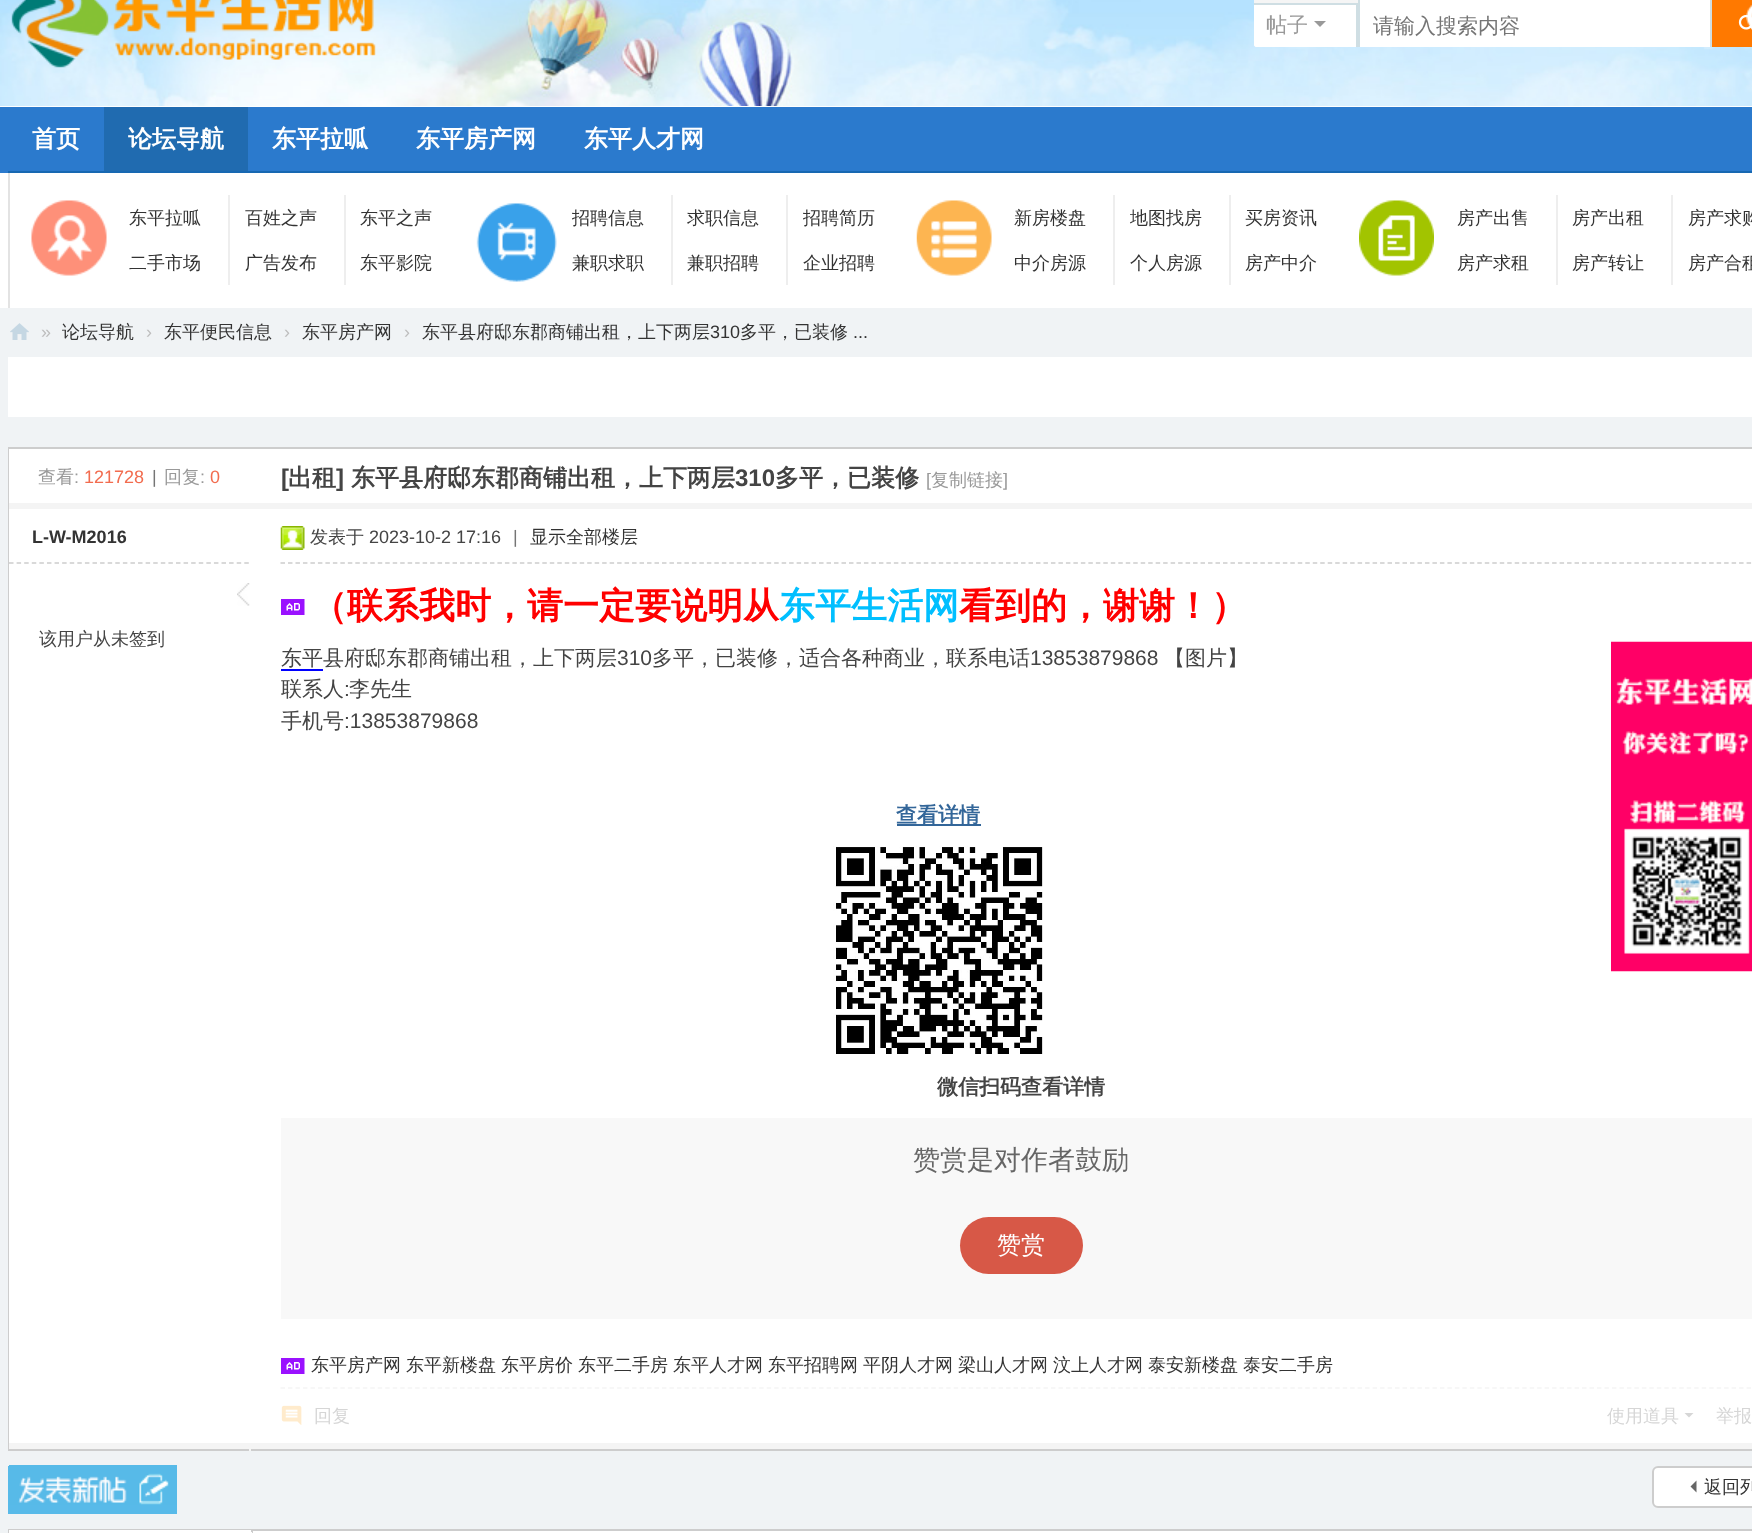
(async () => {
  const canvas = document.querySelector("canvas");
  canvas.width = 1752;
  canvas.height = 1533;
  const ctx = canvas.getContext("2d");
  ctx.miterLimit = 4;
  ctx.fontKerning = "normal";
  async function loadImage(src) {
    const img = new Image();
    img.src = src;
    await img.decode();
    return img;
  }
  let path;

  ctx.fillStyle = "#ffffff";
  ctx.fillRect(0, 0, 1752, 1533);
  ctx.drawImage(await loadImage("img/1.png"), 0, 0, 1752, 106);
  ctx.drawImage(await loadImage("img/2.png"), 11, 0, 365, 68);
  ctx.beginPath();
  ctx.roundRect(1254, -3, 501, 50, 3);
  ctx.fill();
  ctx.fillStyle = "#f5f5f5";
  path = new Path2D("M1257-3H1358V47H1257C1255.5 47 1254 45.5 1254 44V0C1254-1.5 1255.5-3 1257-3Z");
  ctx.fill(path);
  ctx.fillStyle = "#ffffff";
  ctx.beginPath();
  ctx.roundRect(1254, 3, 104, 44, [0, 0, 0, 3]);
  ctx.fill();
  ctx.fillStyle = "#cfdee3";
  ctx.fillRect(1254, 3, 104, 2);
  ctx.fillRect(1356, 3, 2, 44);
  ctx.fillStyle = "#999999";
  path = new Path2D("M1314 21H1326L1320 27Z");
  ctx.fill(path);
  ctx.fillStyle = "#cfdee3";
  path = new Path2D("M1358-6V47H1360V-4H1710V47H1712V-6Z");
  ctx.fill(path);
  ctx.fillStyle = "#ff7900";
  ctx.fillRect(1712, 0, 40, 47);
  ctx.drawImage(await loadImage("img/3.png"), 1746, 4, 6, 25);
  ctx.drawImage(await loadImage("img/4.png"), 1738, 14, 14, 16);
  for (const [x, y, w, h, color] of [
    [0, 107, 1752, 66, "#2b7acd"],
    [8, 171, 1744, 2, "#1768b2"],
    [104, 107, 144, 64, "#206bb0"],
    [8, 173, 2, 139, "#e3e3e3"],
  ]) {
    ctx.fillStyle = color;
    ctx.fillRect(x, y, w, h);
  }
  ctx.drawImage(await loadImage("img/5.png"), 31, 200, 76, 76);
  ctx.fillStyle = "#eeeeee";
  ctx.fillRect(228, 195, 2, 90);
  ctx.fillRect(344, 195, 2, 90);
  ctx.drawImage(await loadImage("img/6.png"), 476, 203, 81, 79);
  ctx.fillRect(671, 195, 2, 90);
  ctx.fillRect(786, 195, 2, 90);
  ctx.drawImage(await loadImage("img/7.png"), 916, 200, 76, 76);
  ctx.fillRect(1113, 195, 2, 90);
  ctx.fillRect(1229, 195, 2, 90);
  ctx.drawImage(await loadImage("img/8.png"), 1359, 200, 75, 76);
  for (const [x, y, w, h, color] of [
    [1556, 195, 2, 90, "#eeeeee"],
    [1671, 195, 2, 90, "#eeeeee"],
    [0, 308, 1752, 1225, "#f0f3f5"],
  ]) {
    ctx.fillStyle = color;
    ctx.fillRect(x, y, w, h);
  }
  ctx.drawImage(await loadImage("img/9.png"), 10, 323, 19, 17);
  ctx.fillStyle = "#ffffff";
  ctx.fillRect(8, 357, 1744, 60);
  ctx.fillRect(251, 449, 1501, 994);
  ctx.strokeStyle = "#cdcdcd";
  ctx.lineWidth = 2;
  ctx.strokeRect(9, 448, 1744, 1002);
  for (const [x, y, w, h, color] of [
    [9, 449, 242, 54, "#ffffff"],
    [9, 503, 1743, 6, "#f4f4f4"],
    [9, 509, 242, 934, "#ffffff"],
  ]) {
    ctx.fillStyle = color;
    ctx.fillRect(x, y, w, h);
  }
  path = new Path2D("M9 563H249");
  ctx.lineWidth = 1.5;
  ctx.setLineDash([4.5, 3.09]);
  ctx.stroke(path);
  ctx.drawImage(await loadImage("img/10.png"), 237, 583, 13, 23);
  path = new Path2D("M280.5 563H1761");
  ctx.setLineDash([4.5, 2.98]);
  ctx.stroke(path);
  ctx.drawImage(await loadImage("img/11.png"), 280, 526, 25, 24);
  ctx.drawImage(await loadImage("img/12.png"), 281, 599, 24, 16);
  ctx.fillStyle = "#0000ff";
  ctx.fillRect(281, 669, 42, 2);
  ctx.drawImage(await loadImage("img/13.png"), 1611, 641, 141, 331);
  ctx.fillStyle = "#336699";
  ctx.fillRect(897, 824, 84, 2);
  ctx.drawImage(await loadImage("img/14.png"), 833, 846, 210, 208);
  ctx.fillStyle = "#f8f8f8";
  ctx.fillRect(281, 1118, 1471, 201);
  ctx.fillStyle = "#d75847";
  ctx.beginPath();
  ctx.roundRect(960, 1217, 123, 57, 28.5);
  ctx.fill();
  ctx.drawImage(await loadImage("img/12.png"), 281, 1358, 24, 16);
  path = new Path2D("M280.5 1388H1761");
  ctx.strokeStyle = "#f5f5f5";
  ctx.stroke(path);
  ctx.drawImage(await loadImage("img/15.png"), 281, 1405, 21, 20);
  ctx.fillStyle = "#d6d6d6";
  path = new Path2D("M1684.5 1413H1693.5L1689 1417.5Z");
  ctx.fill(path);
  for (const [x, y, w, h, color] of [
    [249, 1443, 2, 8, "#f4f4f4"],
    [9, 1443, 1743, 6, "#f4f4f4"],
    [8, 1466, 169, 48, "#58bae9"],
  ]) {
    ctx.fillStyle = color;
    ctx.fillRect(x, y, w, h);
  }
  ctx.drawImage(await loadImage("img/16.png"), 9, 1465, 168, 40);
  ctx.fillStyle = "#ffffff";
  ctx.beginPath();
  ctx.roundRect(1653, 1467, 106, 40, 5);
  ctx.fill();
  ctx.strokeStyle = "#cdcdcd";
  ctx.lineWidth = 2;
  ctx.setLineDash([]);
  ctx.stroke();
  ctx.fillStyle = "#666666";
  path = new Path2D("M1696.5 1480.5V1492.5L1690.5 1486.5Z");
  ctx.fill(path);
  ctx.fillStyle = "#ffffff";
  ctx.fillRect(253, 1531, 1499, 2);
  ctx.strokeRect(9, 1530, 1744, 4);
  for (const [x, y, w, h, color] of [
    [9, 1530, 243, 2, "#ffffff"],
    [251, 1530, 2, 3, "#cdcdcd"],
    [9, 1530, 2, 3, "#ffffff"],
    [11, 1532, 241, 1, "#ffffff"],
  ]) {
    ctx.fillStyle = color;
    ctx.fillRect(x, y, w, h);
  }
  ctx.font = "500 21px WenQuanYi Zen Hei";
  ctx.fillStyle = "#999999";
  ctx.fillText("帖子", 1266, 32);
  ctx.fillStyle = "#757575";
  ctx.fillText("请输入搜索内容", 1373, 33);
  ctx.font = "bold 24px WenQuanYi Zen Hei";
  ctx.fillStyle = "#ffffff";
  for (const [text, x, y] of [
    ["首页", 32, 147],
    ["论坛导航", 128, 147],
    ["东平拉呱", 272, 147],
    ["东平房产网", 416, 147],
    ["东平人才网", 584, 147],
  ]) {
    ctx.fillText(text, x, y);
  }
  ctx.font = "500 18px WenQuanYi Zen Hei";
  ctx.fillStyle = "#333333";
  for (const [text, x, y] of [
    ["东平拉呱", 129, 224],
    ["百姓之声", 245, 224],
    ["东平之声", 360, 224],
    ["二手市场", 129, 269],
    ["广告发布", 245, 269],
    ["东平影院", 360, 269],
    ["招聘信息", 572, 224],
    ["求职信息", 687, 224],
    ["招聘简历", 803, 224],
    ["兼职求职", 572, 269],
    ["兼职招聘", 687, 269],
    ["企业招聘", 803, 269],
    ["新房楼盘", 1014, 224],
    ["地图找房", 1130, 224],
    ["买房资讯", 1245, 224],
    ["中介房源", 1014, 269],
    ["个人房源", 1130, 269],
    ["房产中介", 1245, 269],
    ["房产出售", 1457, 224],
    ["房产出租", 1572, 224],
    ["房产求购", 1688, 224],
    ["房产求租", 1457, 269],
    ["房产转让", 1572, 269],
    ["房产合租", 1688, 269],
  ]) {
    ctx.fillText(text, x, y);
  }
  ctx.font = "18px Liberation Sans";
  ctx.fillStyle = "#bdbdbd";
  ctx.fillText("»", 41, 338);
  ctx.font = "500 18px WenQuanYi Zen Hei";
  ctx.fillStyle = "#333333";
  ctx.fillText("论坛导航", 62, 338);
  ctx.font = "18px Liberation Sans";
  ctx.fillStyle = "#bdbdbd";
  ctx.fillText("›", 146, 338);
  ctx.font = "500 18px WenQuanYi Zen Hei";
  ctx.fillStyle = "#333333";
  ctx.fillText("东平便民信息", 164, 338);
  ctx.font = "18px Liberation Sans";
  ctx.fillStyle = "#bdbdbd";
  ctx.fillText("›", 284, 338);
  ctx.font = "500 18px WenQuanYi Zen Hei";
  ctx.fillStyle = "#333333";
  ctx.fillText("东平房产网", 302, 338);
  ctx.font = "18px Liberation Sans";
  ctx.fillStyle = "#bdbdbd";
  ctx.fillText("›", 404, 338);
  ctx.font = "500 18px WenQuanYi Zen Hei";
  ctx.fillStyle = "#333333";
  ctx.fillText("东平县府邸东郡商铺出租，上下两层", 422, 338);
  ctx.font = "18px Liberation Sans";
  ctx.fillText("310", 710, 338);
  ctx.font = "500 18px WenQuanYi Zen Hei";
  ctx.fillText("多平，已装修", 740, 338);
  ctx.font = "18px Liberation Sans";
  ctx.fillText("...", 853, 338);
  ctx.font = "500 18px WenQuanYi Zen Hei";
  ctx.fillStyle = "#999999";
  ctx.fillText("查看", 38, 483);
  ctx.font = "18px Liberation Sans";
  ctx.fillText(":", 74, 483);
  ctx.fillStyle = "#f26c4f";
  ctx.fillText("121728", 84, 483);
  ctx.fillStyle = "#757575";
  ctx.fillText("|", 152, 483);
  ctx.font = "500 18px WenQuanYi Zen Hei";
  ctx.fillStyle = "#999999";
  ctx.fillText("回复", 164, 483);
  ctx.font = "18px Liberation Sans";
  ctx.fillText(":", 200, 483);
  ctx.fillStyle = "#f26c4f";
  ctx.fillText("0", 210, 483);
  ctx.font = "bold 24px Liberation Sans";
  ctx.fillStyle = "#444444";
  ctx.fillText("[", 281, 486);
  ctx.font = "bold 24px WenQuanYi Zen Hei";
  ctx.fillText("出租", 288, 486);
  ctx.font = "bold 24px Liberation Sans";
  ctx.fillText("]", 336, 486);
  ctx.font = "bold 24px WenQuanYi Zen Hei";
  ctx.fillText("东平县府邸东郡商铺出租，上下两层", 351, 486);
  ctx.font = "bold 24px Liberation Sans";
  ctx.fillText("310", 735, 486);
  ctx.font = "bold 24px WenQuanYi Zen Hei";
  ctx.fillText("多平，已装修", 775, 486);
  ctx.font = "18px Liberation Sans";
  ctx.fillStyle = "#999999";
  ctx.fillText("[", 926, 486);
  ctx.font = "500 18px WenQuanYi Zen Hei";
  ctx.fillText("复制链接", 931, 486);
  ctx.font = "18px Liberation Sans";
  ctx.fillText("]", 1003, 486);
  ctx.font = "bold 18px Liberation Sans";
  ctx.fillStyle = "#333333";
  ctx.fillText("L-W-M2016", 32, 543);
  ctx.font = "500 18px WenQuanYi Zen Hei";
  ctx.fillStyle = "#444444";
  ctx.fillText("该用户从未签到", 39, 645);
  ctx.fillText("发表于", 310, 543);
  ctx.font = "18px Liberation Sans";
  ctx.fillText("2023-10-2 17:16", 369, 543);
  ctx.fillStyle = "#757575";
  ctx.fillText("|", 513, 543);
  ctx.font = "500 18px WenQuanYi Zen Hei";
  ctx.fillStyle = "#333333";
  ctx.fillText("显示全部楼层", 530, 543);
  ctx.font = "bold 36px WenQuanYi Zen Hei";
  ctx.fillStyle = "#ff0000";
  ctx.fillText("（联系我时，请一定要说明从", 311, 618);
  ctx.fillStyle = "#00bfff";
  ctx.fillText("东平生活网", 779, 618);
  ctx.fillStyle = "#ff0000";
  ctx.fillText("看到的，谢谢！）", 959, 618);
  ctx.font = "500 21px WenQuanYi Zen Hei";
  ctx.fillStyle = "#444444";
  ctx.fillText("东平县府邸东郡商铺出租，上下两层", 281, 665);
  ctx.font = "21px Liberation Sans";
  ctx.fillText("310", 617, 665);
  ctx.font = "500 21px WenQuanYi Zen Hei";
  ctx.fillText("多平，已装修，适合各种商业，联系电话", 652, 665);
  ctx.font = "21px Liberation Sans";
  ctx.fillText("13853879868", 1030, 665);
  ctx.font = "500 21px WenQuanYi Zen Hei";
  ctx.fillText("【图片】", 1164, 665);
  ctx.fillText("联系人", 281, 696);
  ctx.font = "21px Liberation Sans";
  ctx.fillText(":", 344, 696);
  ctx.font = "500 21px WenQuanYi Zen Hei";
  ctx.fillText("李先生", 349, 696);
  ctx.fillText("手机号", 281, 728);
  ctx.font = "21px Liberation Sans";
  ctx.fillText(":13853879868", 344, 728);
  ctx.font = "bold 21px WenQuanYi Zen Hei";
  ctx.fillStyle = "#336699";
  ctx.fillText("查看详情", 896, 822);
  ctx.fillStyle = "#444444";
  ctx.fillText("微信扫码查看详情", 937, 1094);
  ctx.font = "500 27px WenQuanYi Zen Hei";
  ctx.fillStyle = "#666666";
  ctx.fillText("赞赏是对作者鼓励", 913, 1169);
  ctx.font = "500 24px WenQuanYi Zen Hei";
  ctx.fillStyle = "#ffffff";
  ctx.fillText("赞赏", 997, 1253);
  ctx.font = "500 18px WenQuanYi Zen Hei";
  ctx.fillStyle = "#333333";
  for (const [text, x, y] of [
    ["东平房产网", 311, 1371],
    ["东平新楼盘", 406, 1371],
    ["东平房价", 501, 1371],
    ["东平二手房", 578, 1371],
    ["东平人才网", 673, 1371],
    ["东平招聘网", 768, 1371],
    ["平阴人才网", 863, 1371],
    ["梁山人才网", 958, 1371],
    ["汶上人才网", 1053, 1371],
    ["泰安新楼盘", 1148, 1371],
    ["泰安二手房", 1243, 1371],
  ]) {
    ctx.fillText(text, x, y);
  }
  ctx.fillStyle = "#d6d6d6";
  for (const [text, x, y] of [
    ["回复", 314, 1422],
    ["使用道具", 1607, 1422],
    ["举报", 1716, 1422],
  ]) {
    ctx.fillText(text, x, y);
  }
  ctx.fillStyle = "#333333";
  ctx.fillText("返回列", 1704, 1493);
})();
